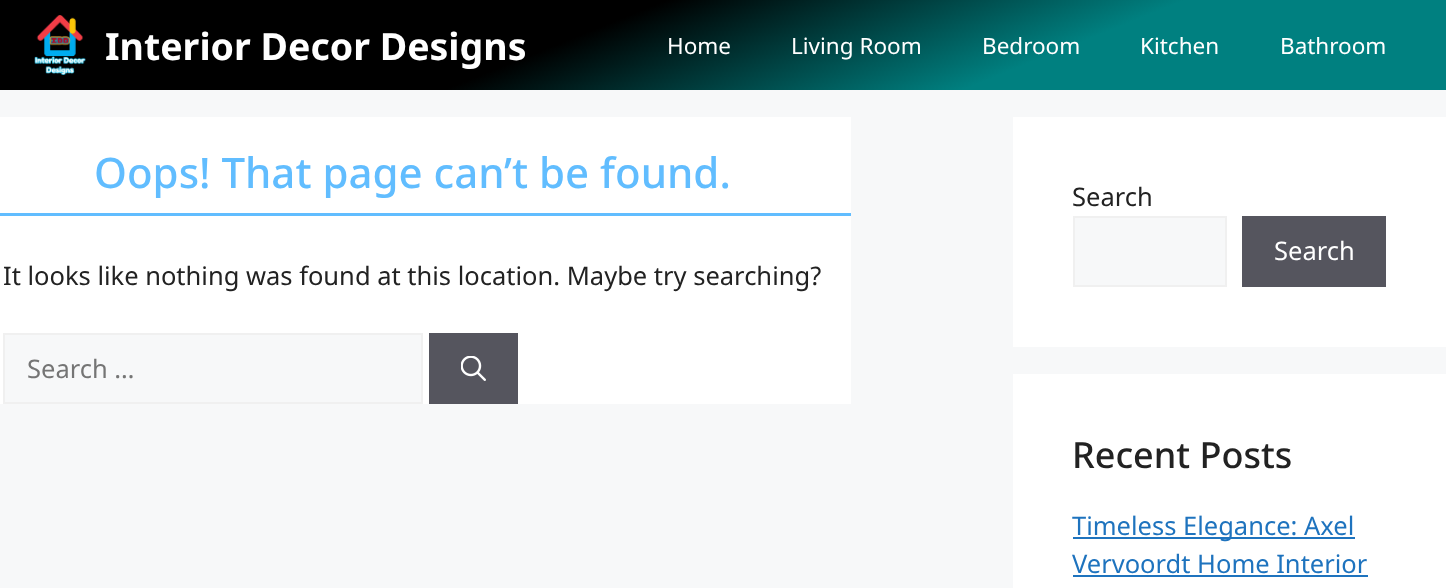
(async () => {
  const canvas = document.querySelector("canvas");
  canvas.width = 1446;
  canvas.height = 588;
  const ctx = canvas.getContext("2d");
  ctx.miterLimit = 4;
  ctx.fontKerning = "normal";
  async function loadImage(src) {
    const img = new Image();
    img.src = src;
    await img.decode();
    return img;
  }
  let gradient;

  ctx.fillStyle = "#f7f8f9";
  ctx.fillRect(0, 0, 1446, 588);
  gradient = ctx.createLinearGradient(840, 335, 606, -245);
  gradient.addColorStop(0.29, "#008080");
  gradient.addColorStop(0.6, "#000000");
  ctx.fillStyle = gradient;
  ctx.fillRect(0, 0, 1446, 90);
  ctx.drawImage(await loadImage("img/1.png"), 34, 15, 52, 60);
  ctx.fillStyle = "#ffffff";
  ctx.fillRect(0, 117, 851, 287);
  ctx.fillStyle = "#61bdff";
  ctx.fillRect(0, 213, 851, 3);
  ctx.fillStyle = "#f7f8f9";
  ctx.beginPath();
  ctx.rect(4, 334, 418, 69);
  ctx.fill();
  ctx.strokeStyle = "#f0f0f0";
  ctx.lineWidth = 2;
  ctx.stroke();
  ctx.fillStyle = "#55555e";
  ctx.fillRect(429, 333, 89, 71);
  ctx.drawImage(await loadImage("img/2.png"), 461, 356, 25, 25);
  ctx.fillStyle = "#ffffff";
  ctx.fillRect(1013, 117, 433, 230);
  ctx.fillStyle = "#f7f8f9";
  ctx.beginPath();
  ctx.rect(1074, 217, 152, 69);
  ctx.fill();
  ctx.stroke();
  for (const [x, y, w, h, color] of [
    [1242, 216, 144, 71, "#55555e"],
    [1013, 374, 433, 214, "#ffffff"],
    [1073, 537, 282, 2, "#1e73be"],
    [1073, 575, 295, 2, "#1e73be"],
  ]) {
    ctx.fillStyle = color;
    ctx.fillRect(x, y, w, h);
  }
  ctx.font = "bold 37.5px Noto Sans";
  ctx.fillStyle = "#ffffff";
  ctx.fillText("Interior Decor Designs", 105, 60);
  ctx.font = "22.5px Noto Sans";
  for (const [text, x, y] of [
    ["Home", 667, 54],
    ["Living Room", 791, 54],
    ["Bedroom", 982, 54],
    ["Kitchen", 1140, 54],
    ["Bathroom", 1280, 54],
  ]) {
    ctx.fillText(text, x, y);
  }
  ctx.font = "500 42px Noto Sans";
  ctx.fillStyle = "#61bdff";
  ctx.fillText("Oops! That page can’t be found.", 94, 188);
  ctx.font = "25.5px Noto Sans";
  ctx.fillStyle = "#222222";
  ctx.fillText("It looks like nothing was found at this location. Maybe try searching?", 3, 285);
  ctx.fillStyle = "#757575";
  ctx.fillText("Search …", 27, 378);
  ctx.fillStyle = "#222222";
  ctx.fillText("Search", 1072, 206);
  ctx.fillStyle = "#ffffff";
  ctx.fillText("Search", 1274, 260);
  ctx.font = "500 36px Noto Sans";
  ctx.fillStyle = "#222222";
  ctx.fillText("Recent Posts", 1072, 468);
  ctx.font = "25.5px Noto Sans";
  ctx.fillStyle = "#1e73be";
  ctx.fillText("Timeless Elegance: Axel", 1072, 535);
  ctx.fillText("Vervoordt Home Interior", 1072, 573);
})();
